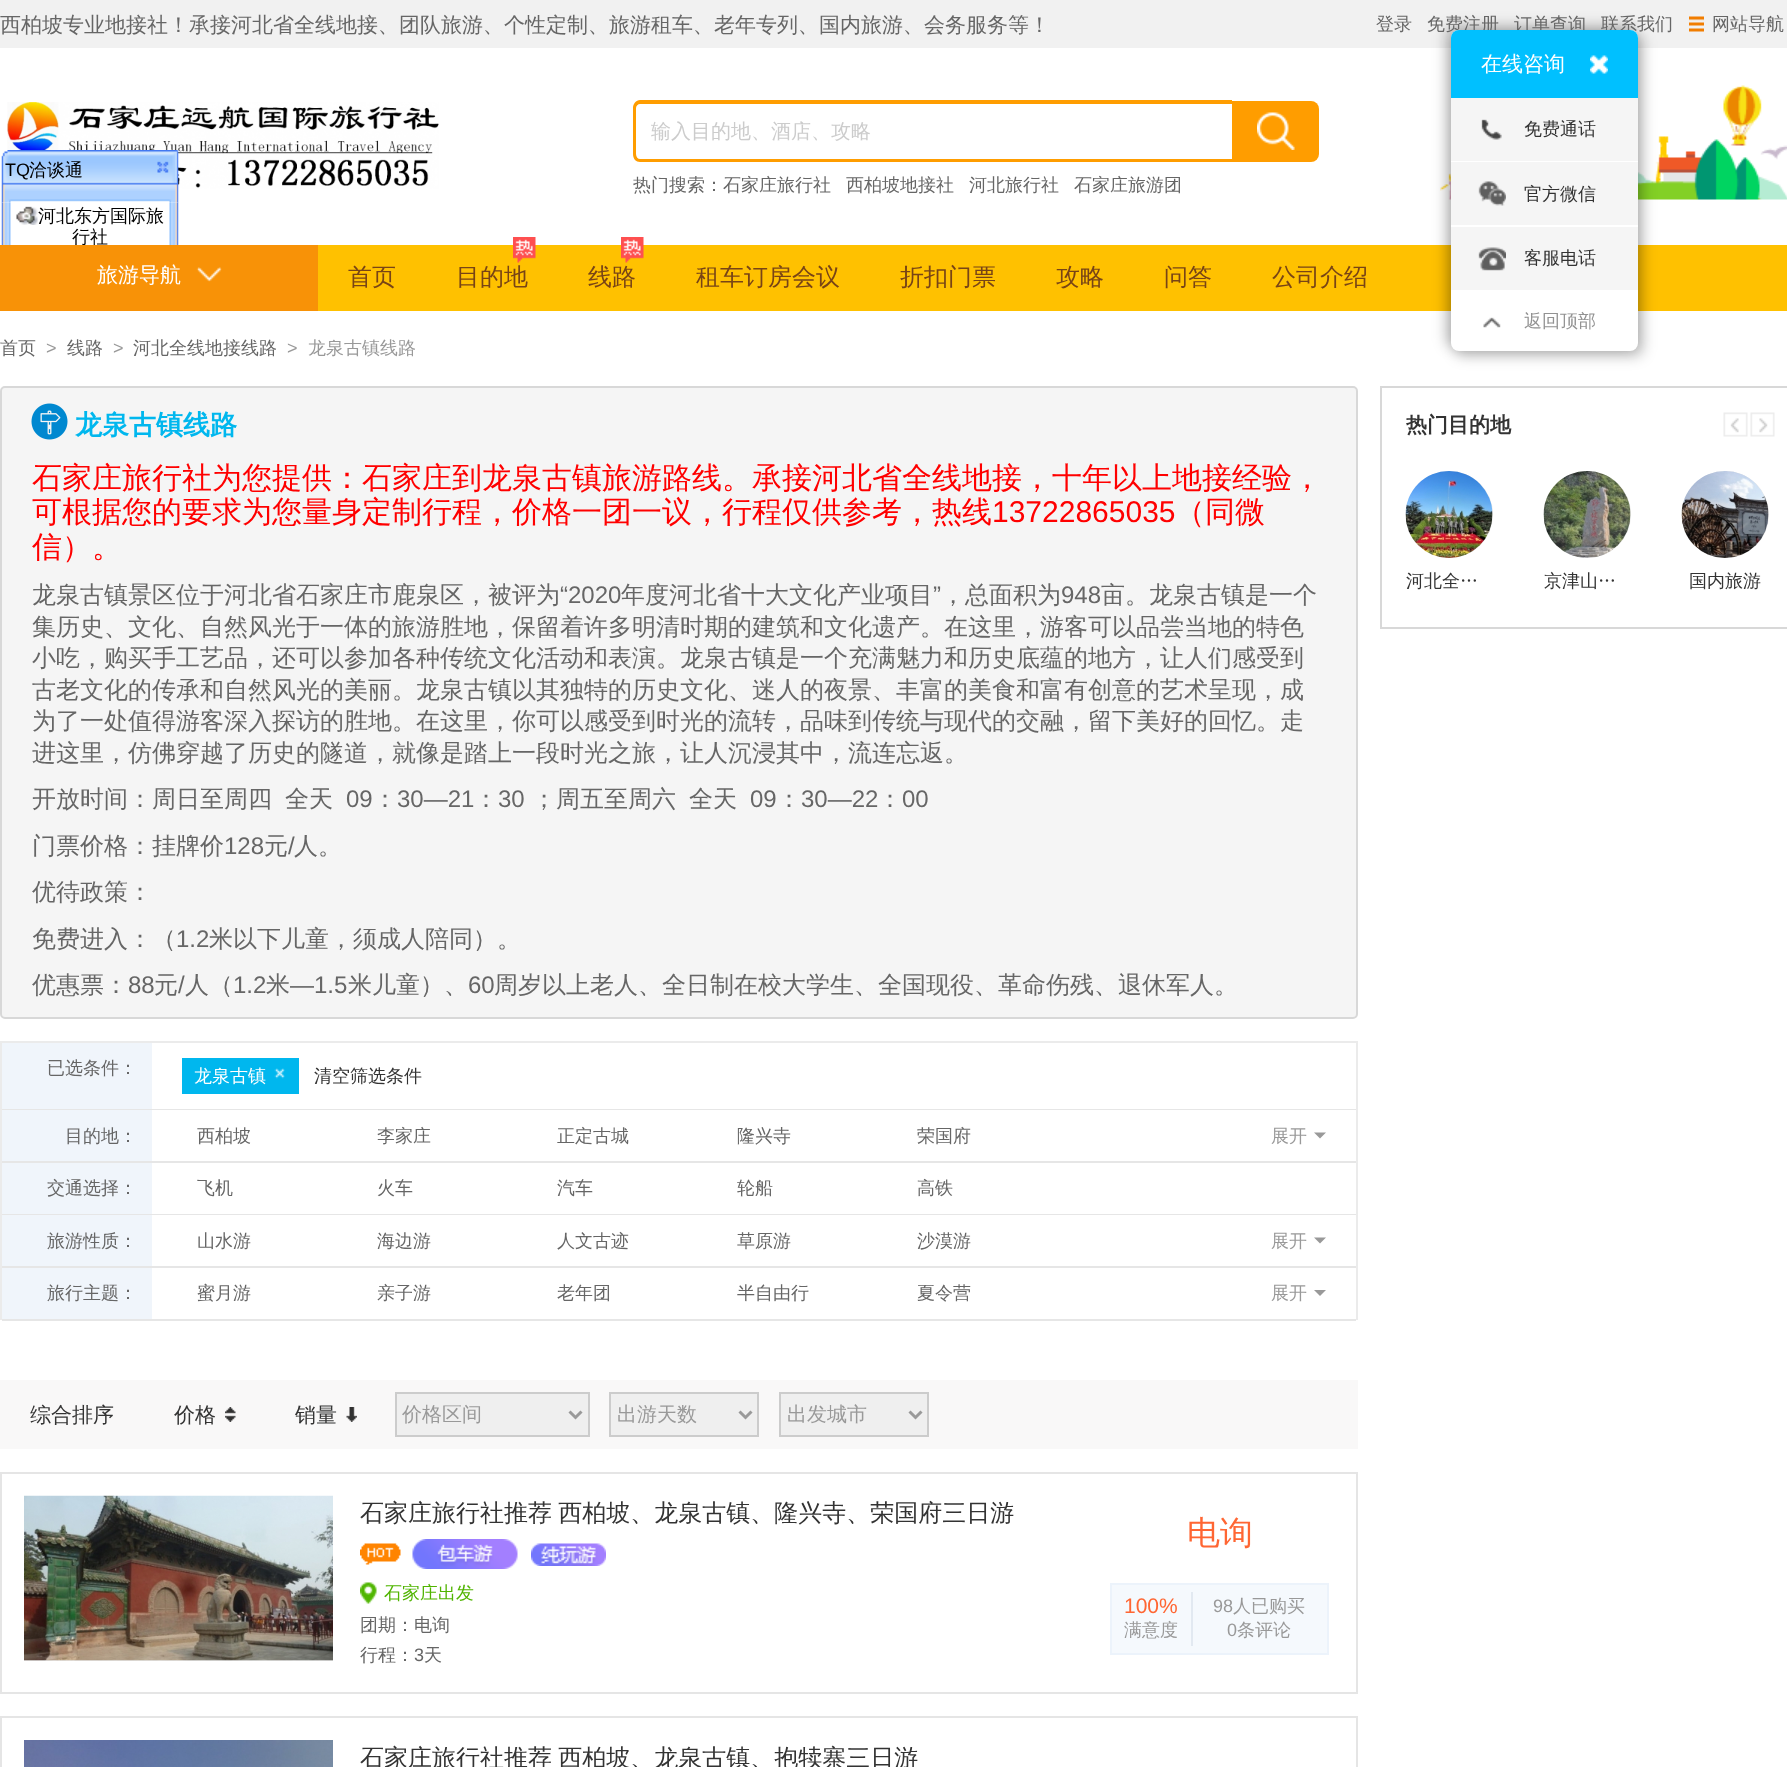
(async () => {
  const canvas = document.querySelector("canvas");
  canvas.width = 1787;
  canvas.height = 1767;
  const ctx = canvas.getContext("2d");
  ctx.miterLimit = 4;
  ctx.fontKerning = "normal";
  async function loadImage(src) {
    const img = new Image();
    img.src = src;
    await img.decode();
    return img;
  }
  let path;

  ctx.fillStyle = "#ffffff";
  ctx.fillRect(0, 0, 1787, 1767);
  ctx.fillStyle = "#f1f1f1";
  ctx.fillRect(0, 0, 1787, 48);
  ctx.drawImage(await loadImage("img/1.png"), 1689, 16, 15, 16);
  ctx.drawImage(await loadImage("img/5.png"), 7, 102, 432, 87);
  ctx.drawImage(await loadImage("img/2.png"), 1, 150, 178, 53);
  ctx.drawImage(await loadImage("img/3.png"), 1, 202, 178, 43);
  ctx.drawImage(await loadImage("img/4.png"), 16, 206, 22, 19);
  ctx.fillStyle = "#ff9d00";
  path = new Path2D("M640 100H1232V162H640C636 162 633 159 633 154V108C633 104 636 100 640 100ZM640 104H1232V159H640C638 159 636 157 636 154V108C636 106 638 104 640 104Z");
  ctx.fill(path, "evenodd");
  ctx.beginPath();
  ctx.roundRect(1232, 101, 87, 61, [0, 8, 8, 0]);
  ctx.fill();
  ctx.drawImage(await loadImage("img/6.png"), 1257, 112, 38, 38);
  ctx.drawImage(await loadImage("img/7.png"), 1440, 85, 347, 115);
  ctx.fillStyle = "#ffc100";
  ctx.fillRect(318, 245, 1469, 66);
  ctx.fillStyle = "rgba(0, 0, 0, 0.25)";
  ctx.filter = "blur(7px)";
  ctx.beginPath();
  ctx.roundRect(1446, 26, 188, 321, 8);
  ctx.fill();
  ctx.filter = "none";
  ctx.filter = "blur(7px)";
  ctx.beginPath();
  ctx.roundRect(1455, 35, 188, 321, 8);
  ctx.fill();
  ctx.filter = "none";
  ctx.drawImage(await loadImage("img/14.png"), 513, 237, 23, 26);
  ctx.drawImage(await loadImage("img/15.png"), 621, 237, 23, 26);
  ctx.fillStyle = "#f5f5f5";
  ctx.beginPath();
  ctx.roundRect(1, 387, 1356, 631, 4);
  ctx.fill();
  ctx.strokeStyle = "#d8d8d8";
  ctx.lineWidth = 2;
  ctx.stroke();
  ctx.drawImage(await loadImage("img/16.png"), 31, 403, 37, 37);
  for (const [x, y, w, h, color] of [
    [0, 1041, 1358, 2, "#ebebeb"],
    [1356, 1041, 2, 279, "#ebebeb"],
    [0, 1041, 2, 279, "#ebebeb"],
    [2, 1043, 150, 66, "#f0f5fb"],
    [2, 1109, 1354, 1, "#e6e6e6"],
    [182, 1058, 117, 36, "#00b7ee"],
  ]) {
    ctx.fillStyle = color;
    ctx.fillRect(x, y, w, h);
  }
  ctx.drawImage(await loadImage("img/17.png"), 274, 1068, 11, 11);
  ctx.fillStyle = "#f0f5fb";
  ctx.fillRect(2, 1110, 150, 51);
  ctx.fillStyle = "#e6e6e6";
  ctx.fillRect(2, 1161, 1354, 2);
  ctx.fillStyle = "#999999";
  path = new Path2D("M1314 1132.5H1326L1320 1138.5Z");
  ctx.fill(path);
  for (const [x, y, w, h, color] of [
    [2, 1163, 150, 51, "#f0f5fb"],
    [2, 1214, 1354, 1, "#e6e6e6"],
    [2, 1215, 150, 51, "#f0f5fb"],
    [2, 1266, 1354, 2, "#e6e6e6"],
  ]) {
    ctx.fillStyle = color;
    ctx.fillRect(x, y, w, h);
  }
  ctx.fillStyle = "#999999";
  path = new Path2D("M1314 1237.5H1326L1320 1243.5Z");
  ctx.fill(path);
  ctx.fillStyle = "#f0f5fb";
  ctx.fillRect(2, 1268, 150, 51);
  ctx.fillStyle = "#e6e6e6";
  ctx.fillRect(2, 1319, 1354, 2);
  ctx.fillStyle = "#999999";
  path = new Path2D("M1314 1290H1326L1320 1296Z");
  ctx.fill(path);
  ctx.fillStyle = "#f9f8f8";
  ctx.fillRect(0, 1380, 1358, 69);
  ctx.drawImage(await loadImage("img/18.png"), 225, 1407, 11, 15);
  ctx.drawImage(await loadImage("img/19.png"), 346, 1407, 11, 15);
  ctx.fillStyle = "#efefef";
  ctx.beginPath();
  ctx.rect(396, 1393, 193, 43);
  ctx.fill();
  ctx.strokeStyle = "#cccccc";
  ctx.stroke();
  path = new Path2D("M569.5 1411.5L575.5 1417.5L581.5 1411.5");
  ctx.strokeStyle = "#999999";
  ctx.lineWidth = 3;
  ctx.stroke(path);
  ctx.beginPath();
  ctx.rect(610, 1393, 148, 43);
  ctx.fill();
  ctx.strokeStyle = "#cccccc";
  ctx.lineWidth = 2;
  ctx.stroke();
  path = new Path2D("M739.5 1411.5L745.5 1417.5L751.5 1411.5");
  ctx.strokeStyle = "#999999";
  ctx.lineWidth = 3;
  ctx.stroke(path);
  ctx.beginPath();
  ctx.rect(780, 1393, 148, 43);
  ctx.fill();
  ctx.strokeStyle = "#cccccc";
  ctx.lineWidth = 2;
  ctx.stroke();
  path = new Path2D("M909.5 1411.5L915.5 1417.5L921.5 1411.5");
  ctx.strokeStyle = "#999999";
  ctx.lineWidth = 3;
  ctx.stroke(path);
  ctx.strokeStyle = "#e5e5e5";
  ctx.lineWidth = 2;
  ctx.strokeRect(1, 1473, 1356, 220);
  ctx.fillStyle = "#e7e7e7";
  ctx.fillRect(24, 1660, 309, 1);
  ctx.drawImage(await loadImage("img/20.png"), 24, 1495, 309, 166);
  ctx.drawImage(await loadImage("img/21.png"), 360, 1543, 41, 22);
  ctx.drawImage(await loadImage("img/22.png"), 412, 1539, 106, 30);
  ctx.drawImage(await loadImage("img/23.png"), 531, 1543, 75, 23);
  ctx.drawImage(await loadImage("img/24.png"), 360, 1582, 17, 22);
  ctx.fillStyle = "#f5f9fd";
  ctx.beginPath();
  ctx.rect(1111, 1584, 217, 70);
  ctx.fill();
  ctx.strokeStyle = "#ecf3fb";
  ctx.stroke();
  ctx.fillStyle = "#e2e9f1";
  ctx.fillRect(1191, 1592, 2, 54);
  ctx.strokeStyle = "#e5e5e5";
  ctx.strokeRect(1, 1717, 1356, 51);
  ctx.drawImage(await loadImage("img/25.png"), 24, 1740, 309, 27);
  ctx.strokeStyle = "#d8d8d8";
  ctx.strokeRect(1381, 387, 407, 241);
  ctx.drawImage(await loadImage("img/26.png"), 1723, 412, 25, 25);
  ctx.drawImage(await loadImage("img/27.png"), 1750, 412, 25, 25);
  ctx.fillStyle = "#e7e7e7";
  ctx.beginPath();
  ctx.arc(1449.5, 514.5, 43.5, 0, Math.PI * 2);
  ctx.fill();
  ctx.drawImage(await loadImage("img/28.png"), 1405, 471, 88, 87);
  ctx.beginPath();
  ctx.arc(1587.5, 514.5, 43.5, 0, Math.PI * 2);
  ctx.fill();
  ctx.drawImage(await loadImage("img/29.png"), 1543, 471, 88, 87);
  ctx.beginPath();
  ctx.arc(1725.5, 514.5, 43.5, 0, Math.PI * 2);
  ctx.fill();
  ctx.drawImage(await loadImage("img/30.png"), 1681, 471, 88, 87);
  ctx.font = "500 21px WenQuanYi Zen Hei";
  ctx.fillStyle = "#666666";
  ctx.fillText("西柏坡专业地接社！承接河北省全线地接、团队旅游、个性定制、旅游租车、老年专列、国内旅游、会务服务等！", 0, 32);
  ctx.font = "500 18px WenQuanYi Zen Hei";
  for (const [text, x, y] of [
    ["登录", 1376, 30],
    ["免费注册", 1427, 30],
    ["订单查询", 1514, 30],
    ["联系我们", 1601, 30],
    ["网站导航", 1712, 30],
  ]) {
    ctx.fillText(text, x, y);
  }
  ctx.font = "18px Liberation Sans";
  ctx.fillStyle = "#000000";
  ctx.fillText("TQ", 5, 176);
  ctx.font = "500 18px WenQuanYi Zen Hei";
  for (const [text, x, y] of [
    ["洽谈通", 29, 176],
    ["河北东方国际旅", 38, 222],
    ["行社", 72, 243],
  ]) {
    ctx.fillText(text, x, y);
  }
  ctx.font = "500 20px WenQuanYi Zen Hei";
  ctx.fillStyle = "#cccccc";
  ctx.fillText("输入目的地、酒店、攻略", 651, 138);
  ctx.font = "500 18px WenQuanYi Zen Hei";
  ctx.fillStyle = "#666666";
  for (const [text, x, y] of [
    ["热门搜索：石家庄旅行社", 633, 191],
    ["西柏坡地接社", 846, 191],
    ["河北旅行社", 969, 191],
    ["石家庄旅游团", 1074, 191],
  ]) {
    ctx.fillText(text, x, y);
  }
  ctx.fillStyle = "#ffffff";
  ctx.beginPath();
  ctx.roundRect(1451, 30, 187, 321, 8);
  ctx.fill();
  ctx.fillStyle = "#00c0ff";
  ctx.beginPath();
  ctx.roundRect(1451, 30, 187, 68, [8, 8, 0, 0]);
  ctx.fill();
  ctx.font = "500 21px WenQuanYi Zen Hei";
  ctx.fillStyle = "#ffffff";
  ctx.fillText("在线咨询", 1481, 71);
  ctx.drawImage(await loadImage("img/8.png"), 1590, 55, 18, 19);
  ctx.fillStyle = "#f5f5f5";
  ctx.fillRect(1451, 98, 187, 63);
  ctx.drawImage(await loadImage("img/9.png"), 1481, 119, 21, 21);
  ctx.font = "500 18px WenQuanYi Zen Hei";
  ctx.fillStyle = "#333333";
  ctx.fillText("免费通话", 1524, 135);
  ctx.fillStyle = "#f5f5f5";
  ctx.fillRect(1451, 162, 187, 63);
  ctx.drawImage(await loadImage("img/10.png"), 1478, 181, 28, 25);
  ctx.fillStyle = "#333333";
  ctx.fillText("官方微信", 1524, 200);
  ctx.fillStyle = "#f5f5f5";
  ctx.fillRect(1451, 227, 187, 63);
  ctx.drawImage(await loadImage("img/11.png"), 1478, 247, 28, 24);
  ctx.fillStyle = "#333333";
  ctx.fillText("客服电话", 1524, 264);
  ctx.drawImage(await loadImage("img/12.png"), 1483, 317, 18, 11);
  ctx.fillStyle = "#929292";
  ctx.fillText("返回顶部", 1524, 327);
  ctx.fillStyle = "#f89207";
  ctx.fillRect(0, 245, 318, 66);
  ctx.font = "500 21px WenQuanYi Zen Hei";
  ctx.fillStyle = "#ffffff";
  ctx.fillText("旅游导航", 97, 282);
  ctx.drawImage(await loadImage("img/13.png"), 196, 267, 26, 15);
  ctx.font = "500 24px WenQuanYi Zen Hei";
  ctx.fillStyle = "#784416";
  for (const [text, x, y] of [
    ["首页", 348, 285],
    ["目的地", 456, 285],
    ["线路", 588, 285],
    ["租车订房会议", 696, 285],
    ["折扣门票", 900, 285],
    ["攻略", 1056, 285],
    ["问答", 1164, 285],
    ["公司介绍", 1272, 285],
  ]) {
    ctx.fillText(text, x, y);
  }
  ctx.font = "500 18px WenQuanYi Zen Hei";
  ctx.fillStyle = "#666666";
  ctx.fillText("首页", 0, 354);
  ctx.font = "18px Liberation Sans";
  ctx.fillStyle = "#999999";
  ctx.fillText(">", 46, 354);
  ctx.font = "500 18px WenQuanYi Zen Hei";
  ctx.fillStyle = "#666666";
  ctx.fillText("线路", 67, 354);
  ctx.font = "18px Liberation Sans";
  ctx.fillStyle = "#999999";
  ctx.fillText(">", 113, 354);
  ctx.font = "500 18px WenQuanYi Zen Hei";
  ctx.fillStyle = "#666666";
  ctx.fillText("河北全线地接线路", 133, 354);
  ctx.font = "18px Liberation Sans";
  ctx.fillStyle = "#999999";
  ctx.fillText(">", 287, 354);
  ctx.font = "500 18px WenQuanYi Zen Hei";
  ctx.fillText("龙泉古镇线路", 308, 354);
  ctx.font = "bold 27px WenQuanYi Zen Hei";
  ctx.fillStyle = "#00b7ee";
  ctx.fillText("龙泉古镇线路", 75, 434);
  ctx.font = "500 30px WenQuanYi Zen Hei";
  ctx.fillStyle = "#ff0000";
  ctx.fillText("石家庄旅行社为您提供：石家庄到龙泉古镇旅游路线。承接河北省全线地接，十年以上地接经验，", 32, 488);
  ctx.fillText("可根据您的要求为您量身定制行程，价格一团一议，行程仅供参考，热线", 32, 522);
  ctx.font = "30px Liberation Sans";
  ctx.fillText("13722865035", 992, 522);
  ctx.font = "500 30px WenQuanYi Zen Hei";
  ctx.fillText("（同微", 1175, 522);
  ctx.fillText("信）。", 32, 557);
  ctx.font = "500 24px WenQuanYi Zen Hei";
  ctx.fillStyle = "#666666";
  ctx.fillText("龙泉古镇景区位于河北省石家庄市鹿泉区，被评为", 32, 603);
  ctx.font = "24px Liberation Sans";
  ctx.fillText("“2020", 560, 603);
  ctx.font = "500 24px WenQuanYi Zen Hei";
  ctx.fillText("年度河北省十大文化产业项目", 621, 603);
  ctx.font = "24px Liberation Sans";
  ctx.fillText("”", 933, 603);
  ctx.font = "500 24px WenQuanYi Zen Hei";
  ctx.fillText("，总面积为", 941, 603);
  ctx.font = "24px Liberation Sans";
  ctx.fillText("948", 1061, 603);
  ctx.font = "500 24px WenQuanYi Zen Hei";
  for (const [text, x, y] of [
    ["亩。龙泉古镇是一个", 1101, 603],
    ["集历史、文化、自然风光于一体的旅游胜地，保留着许多明清时期的建筑和文化遗产。在这里，游客可以品尝当地的特色", 32, 635],
    ["小吃，购买手工艺品，还可以参加各种传统文化活动和表演。龙泉古镇是一个充满魅力和历史底蕴的地方，让人们感受到", 32, 666],
    ["古老文化的传承和自然风光的美丽。龙泉古镇以其独特的历史文化、迷人的夜景、丰富的美食和富有创意的艺术呈现，成", 32, 698],
    ["为了一处值得游客深入探访的胜地。在这里，你可以感受到时光的流转，品味到传统与现代的交融，留下美好的回忆。走", 32, 729],
    ["进这里，仿佛穿越了历史的隧道，就像是踏上一段时光之旅，让人沉浸其中，流连忘返。", 32, 761],
    ["开放时间：周日至周四", 32, 807],
    ["全天", 285, 807],
  ]) {
    ctx.fillText(text, x, y);
  }
  ctx.font = "24px Liberation Sans";
  ctx.fillText("09", 346, 807);
  ctx.font = "500 24px WenQuanYi Zen Hei";
  ctx.fillText("：", 373, 807);
  ctx.font = "24px Liberation Sans";
  ctx.fillText("30—21", 397, 807);
  ctx.font = "500 24px WenQuanYi Zen Hei";
  ctx.fillText("：", 474, 807);
  ctx.font = "24px Liberation Sans";
  ctx.fillText("30", 498, 807);
  ctx.font = "500 24px WenQuanYi Zen Hei";
  ctx.fillText("；周五至周六", 532, 807);
  ctx.fillText("全天", 689, 807);
  ctx.font = "24px Liberation Sans";
  ctx.fillText("09", 750, 807);
  ctx.font = "500 24px WenQuanYi Zen Hei";
  ctx.fillText("：", 777, 807);
  ctx.font = "24px Liberation Sans";
  ctx.fillText("30—22", 801, 807);
  ctx.font = "500 24px WenQuanYi Zen Hei";
  ctx.fillText("：", 878, 807);
  ctx.font = "24px Liberation Sans";
  ctx.fillText("00", 902, 807);
  ctx.font = "500 24px WenQuanYi Zen Hei";
  ctx.fillText("门票价格：挂牌价", 32, 854);
  ctx.font = "24px Liberation Sans";
  ctx.fillText("128", 224, 854);
  ctx.font = "500 24px WenQuanYi Zen Hei";
  ctx.fillText("元", 264, 854);
  ctx.font = "24px Liberation Sans";
  ctx.fillText("/", 288, 854);
  ctx.font = "500 24px WenQuanYi Zen Hei";
  for (const [text, x, y] of [
    ["人。", 294, 854],
    ["优待政策：", 32, 900],
    ["免费进入：（", 32, 947],
  ]) {
    ctx.fillText(text, x, y);
  }
  ctx.font = "24px Liberation Sans";
  ctx.fillText("1.2", 176, 947);
  ctx.font = "500 24px WenQuanYi Zen Hei";
  ctx.fillText("米以下儿童，须成人陪同）。", 209, 947);
  ctx.fillText("优惠票：", 32, 993);
  ctx.font = "24px Liberation Sans";
  ctx.fillText("88", 128, 993);
  ctx.font = "500 24px WenQuanYi Zen Hei";
  ctx.fillText("元", 154, 993);
  ctx.font = "24px Liberation Sans";
  ctx.fillText("/", 178, 993);
  ctx.font = "500 24px WenQuanYi Zen Hei";
  ctx.fillText("人（", 185, 993);
  ctx.font = "24px Liberation Sans";
  ctx.fillText("1.2", 233, 993);
  ctx.font = "500 24px WenQuanYi Zen Hei";
  ctx.fillText("米", 266, 993);
  ctx.font = "24px Liberation Sans";
  ctx.fillText("—1.5", 290, 993);
  ctx.font = "500 24px WenQuanYi Zen Hei";
  ctx.fillText("米儿童）、", 348, 993);
  ctx.font = "24px Liberation Sans";
  ctx.fillText("60", 468, 993);
  ctx.font = "500 24px WenQuanYi Zen Hei";
  ctx.fillText("周岁以上老人、全日制在校大学生、全国现役、革命伤残、退休军人。", 494, 993);
  ctx.font = "500 18px WenQuanYi Zen Hei";
  ctx.fillText("已选条件：", 47, 1074);
  ctx.fillStyle = "#ffffff";
  ctx.fillText("龙泉古镇", 194, 1082);
  ctx.fillStyle = "#333333";
  ctx.fillText("清空筛选条件", 314, 1082);
  ctx.fillStyle = "#666666";
  for (const [text, x, y] of [
    ["目的地：", 65, 1142],
    ["西柏坡", 197, 1142],
    ["李家庄", 377, 1142],
    ["正定古城", 557, 1142],
    ["隆兴寺", 737, 1142],
    ["荣国府", 917, 1142],
  ]) {
    ctx.fillText(text, x, y);
  }
  ctx.fillStyle = "#999999";
  ctx.fillText("展开", 1271, 1142);
  ctx.fillStyle = "#666666";
  for (const [text, x, y] of [
    ["交通选择：", 47, 1194],
    ["飞机", 197, 1194],
    ["火车", 377, 1194],
    ["汽车", 557, 1194],
    ["轮船", 737, 1194],
    ["高铁", 917, 1194],
    ["旅游性质：", 47, 1247],
    ["山水游", 197, 1247],
    ["海边游", 377, 1247],
    ["人文古迹", 557, 1247],
    ["草原游", 737, 1247],
    ["沙漠游", 917, 1247],
  ]) {
    ctx.fillText(text, x, y);
  }
  ctx.fillStyle = "#999999";
  ctx.fillText("展开", 1271, 1247);
  ctx.fillStyle = "#666666";
  for (const [text, x, y] of [
    ["旅行主题：", 47, 1299],
    ["蜜月游", 197, 1299],
    ["亲子游", 377, 1299],
    ["老年团", 557, 1299],
    ["半自由行", 737, 1299],
    ["夏令营", 917, 1299],
  ]) {
    ctx.fillText(text, x, y);
  }
  ctx.fillStyle = "#999999";
  ctx.fillText("展开", 1271, 1299);
  ctx.font = "500 21px WenQuanYi Zen Hei";
  ctx.fillStyle = "#333333";
  for (const [text, x, y] of [
    ["综合排序", 30, 1422],
    ["价格", 174, 1422],
    ["销量", 295, 1422],
  ]) {
    ctx.fillText(text, x, y);
  }
  ctx.font = "500 20px WenQuanYi Zen Hei";
  ctx.fillStyle = "#999999";
  for (const [text, x, y] of [
    ["价格区间", 402, 1421],
    ["出游天数", 617, 1421],
    ["出发城市", 787, 1421],
  ]) {
    ctx.fillText(text, x, y);
  }
  ctx.wordSpacing = "-1px";
  ctx.font = "500 24px WenQuanYi Zen Hei";
  ctx.fillStyle = "#333333";
  ctx.fillText("石家庄旅行社推荐 西柏坡、龙泉古镇、隆兴寺、荣国府三日游", 360, 1521);
  ctx.wordSpacing = "0px";
  ctx.font = "500 18px WenQuanYi Zen Hei";
  ctx.fillStyle = "#50b400";
  ctx.fillText("石家庄出发", 384, 1599);
  ctx.fillStyle = "#666666";
  ctx.fillText("团期：电询", 360, 1631);
  ctx.fillText("行程：", 360, 1661);
  ctx.font = "18px Liberation Sans";
  ctx.fillText("3", 414, 1661);
  ctx.font = "500 18px WenQuanYi Zen Hei";
  ctx.fillText("天", 424, 1661);
  ctx.font = "500 33px WenQuanYi Zen Hei";
  ctx.fillStyle = "#ff6633";
  ctx.fillText("电询", 1187, 1544);
  ctx.font = "21px Liberation Sans";
  ctx.fillText("100%", 1124, 1613);
  ctx.font = "500 18px WenQuanYi Zen Hei";
  ctx.fillStyle = "#999999";
  ctx.fillText("满意度", 1124, 1636);
  ctx.font = "18px Liberation Sans";
  ctx.fillText("98", 1213, 1612);
  ctx.font = "500 18px WenQuanYi Zen Hei";
  ctx.fillText("人已购买", 1233, 1612);
  ctx.font = "18px Liberation Sans";
  ctx.fillText("0", 1227, 1636);
  ctx.font = "500 18px WenQuanYi Zen Hei";
  ctx.fillText("条评论", 1237, 1636);
  ctx.wordSpacing = "-1px";
  ctx.font = "500 24px WenQuanYi Zen Hei";
  ctx.fillStyle = "#333333";
  ctx.fillText("石家庄旅行社推荐 西柏坡、龙泉古镇、抱犊寨三日游", 360, 1766);
  ctx.wordSpacing = "0px";
  ctx.font = "bold 21px WenQuanYi Zen Hei";
  ctx.fillText("热门目的地", 1406, 432);
  ctx.font = "500 18px WenQuanYi Zen Hei";
  for (const [text, x, y] of [
    ["河北全…", 1406, 587],
    ["京津山…", 1544, 587],
    ["国内旅游", 1689, 587],
  ]) {
    ctx.fillText(text, x, y);
  }
})();
